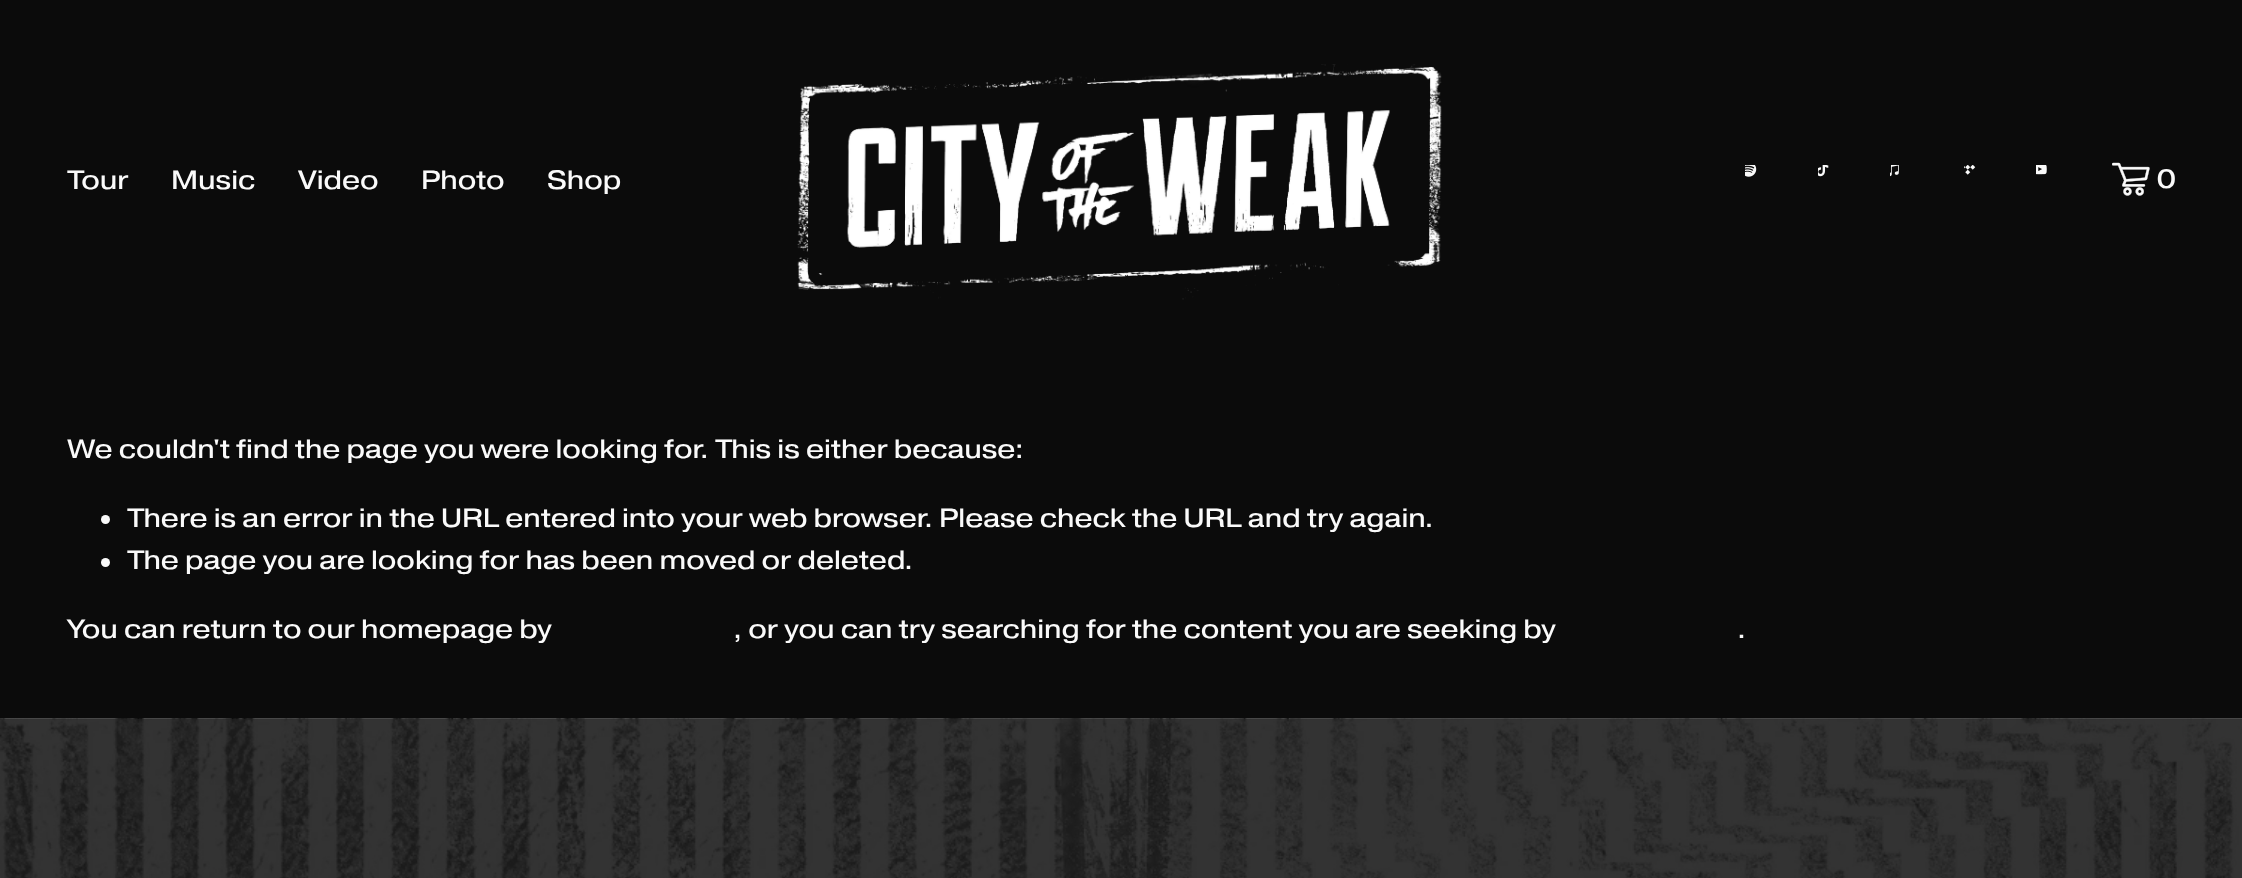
(async () => {
  const canvas = document.querySelector("canvas");
  canvas.width = 2242;
  canvas.height = 878;
  const ctx = canvas.getContext("2d");
  ctx.miterLimit = 4;
  ctx.fontKerning = "normal";
  async function loadImage(src) {
    const img = new Image();
    img.src = src;
    await img.decode();
    return img;
  }

  ctx.fillStyle = "#0b0b0b";
  ctx.fillRect(0, 0, 2242, 878);
  ctx.drawImage(await loadImage("img/1.png"), 797, 64, 645, 236);
  ctx.drawImage(await loadImage("img/2.png"), 1745, 165, 12, 12);
  ctx.drawImage(await loadImage("img/3.png"), 1818, 165, 11, 12);
  ctx.drawImage(await loadImage("img/4.png"), 1890, 165, 9, 12);
  ctx.drawImage(await loadImage("img/5.png"), 1964, 165, 12, 10);
  ctx.drawImage(await loadImage("img/6.png"), 2036, 165, 11, 10);
  ctx.drawImage(await loadImage("img/7.png"), 2112, 162, 38, 34);
  ctx.fillStyle = "#fafafa";
  ctx.beginPath();
  ctx.arc(105.5, 519.5, 4.5, 0, Math.PI * 2);
  ctx.fill();
  ctx.beginPath();
  ctx.arc(105.5, 562.5, 4.5, 0, Math.PI * 2);
  ctx.fill();
  ctx.drawImage(await loadImage("img/8.png"), 0, 718, 2242, 160);
  ctx.font = "26.4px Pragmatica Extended";
  for (const [text, x, y] of [
    ["Tour", 67, 189],
    ["Music", 171, 189],
    ["Video", 298, 189],
    ["Photo", 421, 189],
    ["Shop", 547, 189],
    ["0", 2157, 188],
    ["We couldn't find the page you were looking for. This is either because:", 67, 458],
    ["There is an error in the URL entered into your web browser. Please check the URL and try again.", 127, 527],
    ["The page you are looking for has been moved or deleted.", 127, 569],
    ["You can return to our homepage by", 67, 638],
    [", or you can try searching for the content you are seeking by", 733, 638],
    [".", 1737, 638],
  ]) {
    ctx.fillText(text, x, y);
  }
})();
